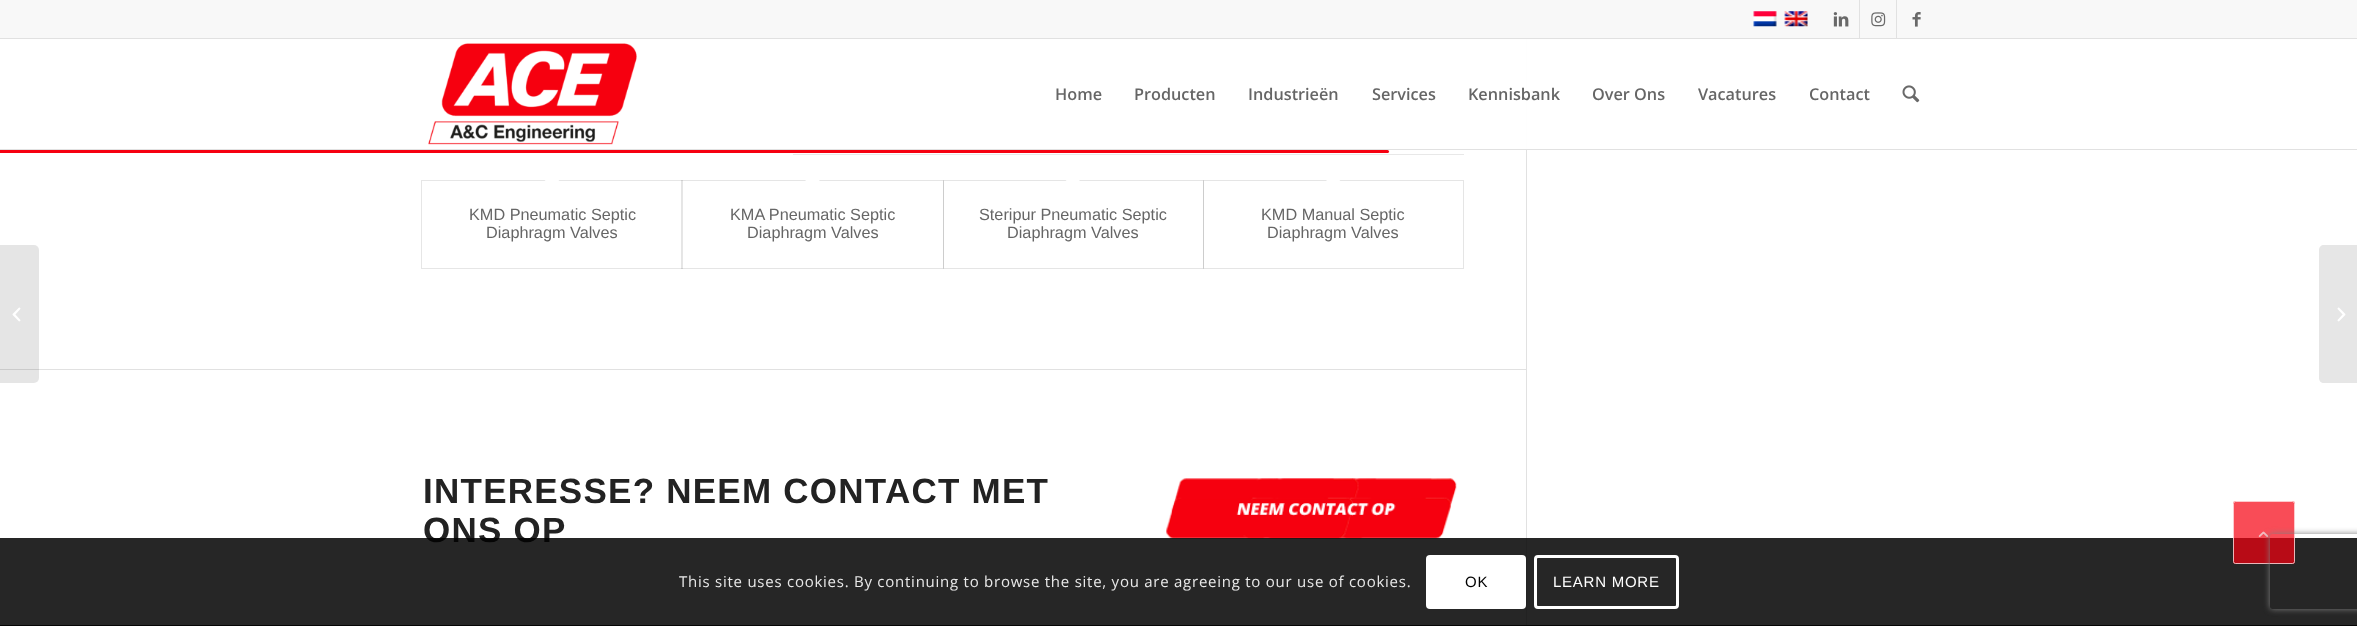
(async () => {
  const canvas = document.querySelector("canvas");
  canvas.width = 2357;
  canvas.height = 626;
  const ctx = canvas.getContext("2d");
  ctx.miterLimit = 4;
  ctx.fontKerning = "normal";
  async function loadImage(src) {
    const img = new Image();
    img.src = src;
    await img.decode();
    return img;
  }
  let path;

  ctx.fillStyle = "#ffffff";
  ctx.fillRect(0, 0, 2357, 626);
  ctx.fillStyle = "#f8f8f8";
  ctx.fillRect(0, 0, 2357, 38);
  ctx.fillStyle = "#e1e1e1";
  ctx.fillRect(0, 38, 2357, 1);
  ctx.drawImage(await loadImage("img/1.png"), 1753, 11, 24, 16);
  ctx.drawImage(await loadImage("img/2.png"), 1784, 11, 24, 16);
  ctx.fillRect(1859, 0, 1, 38);
  ctx.drawImage(await loadImage("img/3.png"), 1833, 12, 16, 15);
  ctx.fillRect(1896, 0, 1, 38);
  ctx.drawImage(await loadImage("img/4.png"), 1871, 12, 15, 15);
  ctx.drawImage(await loadImage("img/5.png"), 1912, 12, 9, 15);
  for (const [x, y, w, h, color] of [
    [1526, 39, 1, 586, "#e1e1e1"],
    [1526, 39, 1, 110, "rgba(255, 255, 255, 0.95)"],
    [0, 149, 2357, 1, "#e1e1e1"],
  ]) {
    ctx.fillStyle = color;
    ctx.fillRect(x, y, w, h);
  }
  ctx.drawImage(await loadImage("img/6.png"), 428, 43, 209, 102);
  ctx.drawImage(await loadImage("img/7.png"), 1902, 85, 18, 18);
  ctx.fillStyle = "#f60010";
  ctx.beginPath();
  ctx.roundRect(0, 150, 1389, 3, [0, 1.5, 1.5, 0]);
  ctx.fill();
  ctx.fillStyle = "#e1e1e1";
  ctx.fillRect(0, 369, 1526, 1);
  ctx.fillStyle = "rgba(0, 0, 0, 0.1)";
  ctx.beginPath();
  ctx.roundRect(0, 245, 39, 138, [0, 5, 5, 0]);
  ctx.fill();
  ctx.drawImage(await loadImage("img/8.png"), 12, 307, 9, 15);
  ctx.fillStyle = "#e8e8e8";
  ctx.fillRect(793, 154, 671, 1);
  ctx.strokeStyle = "#e6e6e6";
  ctx.strokeRect(421.5, 180.5, 261, 88);
  ctx.fillStyle = "#ffffff";
  path = new Path2D("M552 174L561 182.5L552 191.5L543 182.5Z");
  ctx.fill(path);
  ctx.strokeStyle = "rgba(0, 0, 0, 0.1)";
  ctx.strokeRect(681.5, 180.5, 262, 88);
  path = new Path2D("M812.5 174L821.5 182.5L812.5 191.5L803.5 182.5Z");
  ctx.fill(path);
  ctx.strokeRect(943.5, 180.5, 260, 88);
  path = new Path2D("M1073 174L1081.5 182.5L1073 191.5L1064 182.5Z");
  ctx.fill(path);
  ctx.strokeRect(1203.5, 180.5, 260, 88);
  path = new Path2D("M1333 174L1342 182.5L1333 191.5L1324.5 182.5Z");
  ctx.fill(path);
  ctx.drawImage(await loadImage("img/9.png"), 1166, 478, 291, 61);
  ctx.fillStyle = "#222222";
  ctx.fillRect(0, 625, 2357, 1);
  ctx.fillStyle = "#e6e6e6";
  path = new Path2D("M2324 245H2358V383H2324C2321 383 2319 381 2319 378V250C2319 247 2321 245 2324 245Z");
  ctx.fill(path);
  ctx.drawImage(await loadImage("img/10.png"), 2337, 307, 9, 15);
  ctx.font = "600 16.25px Open Sans";
  ctx.fillStyle = "#666666";
  for (const [text, x, y] of [
    ["Home", 1055, 100],
    ["Producten", 1134, 100],
    ["Industrieën", 1248, 100],
    ["Services", 1372, 100],
    ["Kennisbank", 1468, 100],
    ["Over Ons", 1592, 100],
    ["Vacatures", 1698, 100],
    ["Contact", 1809, 100],
  ]) {
    ctx.fillText(text, x, y);
  }
  ctx.font = "16.25px Liberation Sans";
  for (const [text, x, y] of [
    ["KMD Pneumatic Septic", 469, 220],
    ["Diaphragm Valves", 486, 238],
    ["KMA Pneumatic Septic", 730, 220],
    ["Diaphragm Valves", 747, 238],
    ["Steripur Pneumatic Septic", 979, 220],
    ["Diaphragm Valves", 1007, 238],
    ["KMD Manual Septic", 1261, 220],
    ["Diaphragm Valves", 1267, 238],
  ]) {
    ctx.fillText(text, x, y);
  }
  ctx.letterSpacing = "1.25px";
  ctx.font = "bold 35px Liberation Sans";
  ctx.fillStyle = "#222222";
  ctx.fillText("INTERESSE? NEEM CONTACT MET", 423, 503);
  ctx.fillText("ONS OP", 423, 542);
  ctx.fillStyle = "rgba(0, 0, 0, 0.85)";
  ctx.fillRect(0, 538, 2357, 88);
  ctx.fillStyle = "rgba(246, 0, 16, 0.7)";
  ctx.beginPath();
  ctx.roundRect(2233, 501, 62, 63, 2.5);
  ctx.fill();
  ctx.beginPath();
  ctx.roundRect(2233.5, 501.5, 61, 62, 2);
  ctx.strokeStyle = "rgba(255, 255, 255, 0.7)";
  ctx.stroke();
  ctx.drawImage(await loadImage("img/11.png"), 2258, 531, 11, 6);
  ctx.letterSpacing = "0.75px";
  ctx.font = "15px Open Sans";
  ctx.fillStyle = "#e9e9e9";
  ctx.fillText("This site uses cookies. By continuing to browse the site, you are agreeing to our use of cookies.", 679, 587);
  ctx.fillStyle = "#ffffff";
  ctx.beginPath();
  ctx.roundRect(1426, 555, 100, 54, 4);
  ctx.fill();
  ctx.font = "15px Liberation Sans";
  ctx.fillStyle = "#000000";
  ctx.fillText("OK", 1465, 587);
  ctx.beginPath();
  ctx.roundRect(1535.5, 556.5, 142, 51, 2.5);
  ctx.strokeStyle = "#ffffff";
  ctx.lineWidth = 3;
  ctx.stroke();
  ctx.fillStyle = "#ffffff";
  ctx.fillText("LEARN MORE", 1553, 587);
  ctx.save();
  path = new Path2D("M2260 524H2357V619H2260ZM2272.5 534H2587.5C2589 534 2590 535 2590 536.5V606.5C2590 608 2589 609 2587.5 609H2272.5C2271 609 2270 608 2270 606.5V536.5C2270 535 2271 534 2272.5 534Z");
  ctx.clip(path, "evenodd");
  ctx.fillStyle = "#808080";
  ctx.filter = "blur(3px)";
  ctx.beginPath();
  ctx.roundRect(2270, 534, 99, 75, 2.5);
  ctx.fill();
  ctx.filter = "none";
  ctx.restore();
})();
